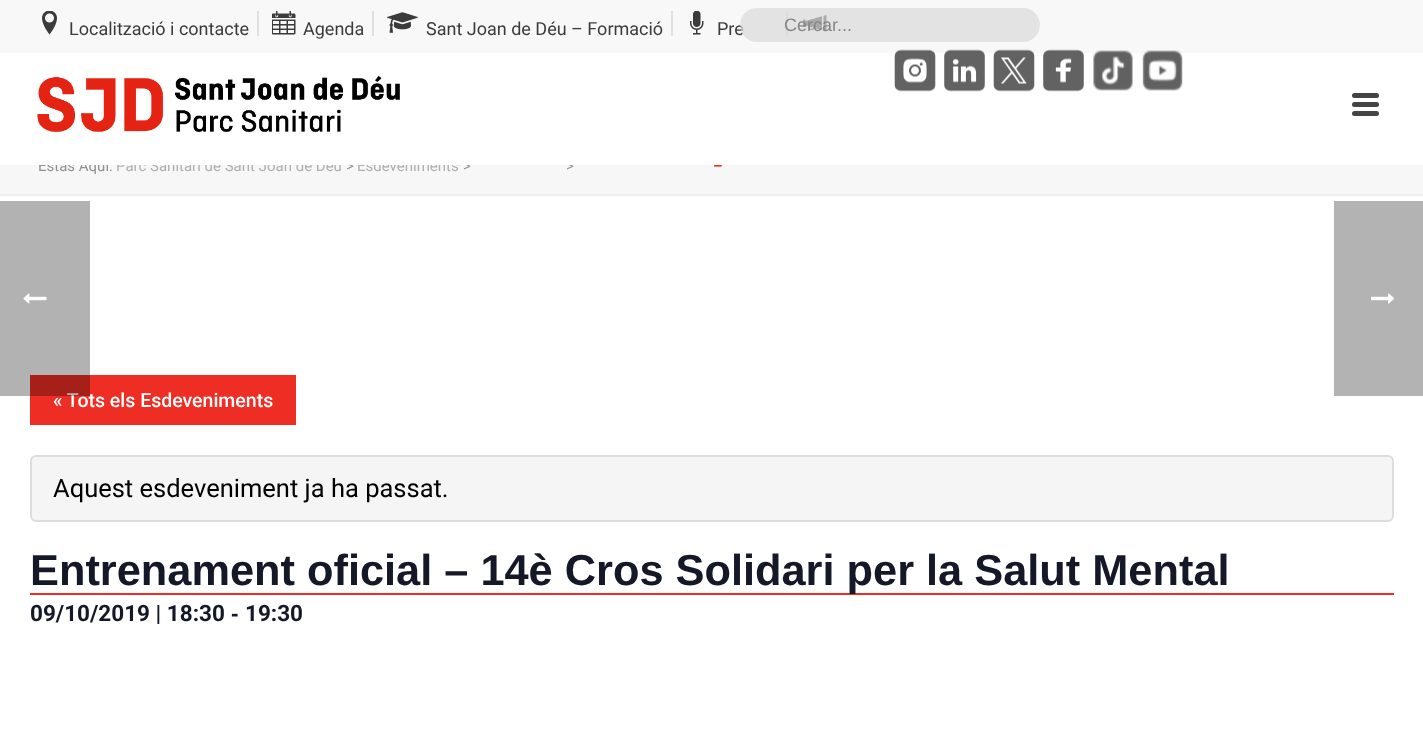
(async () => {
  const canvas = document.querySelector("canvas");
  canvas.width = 1423;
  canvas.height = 747;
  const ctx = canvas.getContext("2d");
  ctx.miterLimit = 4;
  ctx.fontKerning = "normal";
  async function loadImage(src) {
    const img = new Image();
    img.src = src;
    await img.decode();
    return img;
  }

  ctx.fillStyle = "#ffffff";
  ctx.fillRect(0, 0, 1423, 747);
  for (const [x, y, w, h, color] of [
    [0, 165, 1423, 29, "#f7f7f7"],
    [0, 194, 1423, 2, "#ededed"],
    [0, 0, 1423, 53, "#f8f8f8"],
    [257, 11, 2, 25, "#e0e0e0"],
  ]) {
    ctx.fillStyle = color;
    ctx.fillRect(x, y, w, h);
  }
  ctx.drawImage(await loadImage("img/1.png"), 42, 11, 15, 24);
  ctx.fillRect(372, 11, 2, 25);
  ctx.drawImage(await loadImage("img/2.png"), 272, 11, 24, 24);
  ctx.fillRect(671, 11, 2, 25);
  ctx.drawImage(await loadImage("img/3.png"), 387, 12, 31, 21);
  ctx.fillRect(786, 11, 2, 25);
  ctx.drawImage(await loadImage("img/4.png"), 690, 11, 14, 24);
  ctx.drawImage(await loadImage("img/5.png"), 803, 15, 24, 17);
  ctx.drawImage(await loadImage("img/6.png"), 894, 49, 42, 43);
  ctx.drawImage(await loadImage("img/7.png"), 944, 49, 41, 43);
  ctx.drawImage(await loadImage("img/8.png"), 993, 49, 42, 43);
  ctx.drawImage(await loadImage("img/9.png"), 1043, 49, 41, 43);
  ctx.drawImage(await loadImage("img/10.png"), 1093, 50, 40, 41);
  ctx.drawImage(await loadImage("img/11.png"), 1142, 50, 41, 41);
  ctx.drawImage(await loadImage("img/12.png"), 37, 75, 363, 57);
  ctx.fillStyle = "#444444";
  ctx.beginPath();
  ctx.roundRect(1352, 93, 27, 5, 2.5);
  ctx.fill();
  ctx.beginPath();
  ctx.roundRect(1352, 102, 27, 5, 2.5);
  ctx.fill();
  ctx.beginPath();
  ctx.roundRect(1352, 111, 27, 5, 2.5);
  ctx.fill();
  ctx.fillStyle = "#ee2e24";
  ctx.fillRect(30, 375, 266, 50);
  ctx.fillStyle = "#f5f5f6";
  ctx.beginPath();
  ctx.roundRect(31, 456, 1362, 65, 5);
  ctx.fill();
  ctx.strokeStyle = "#dddddd";
  ctx.lineWidth = 2;
  ctx.stroke();
  ctx.fillStyle = "#ee2e24";
  ctx.fillRect(30, 593, 1364, 2);
  ctx.fillStyle = "#b3b3b3";
  ctx.fillRect(1334, 201, 89, 195);
  ctx.drawImage(await loadImage("img/14.png"), 1371, 293, 23, 11);
  ctx.font = "18px Roboto";
  ctx.fillStyle = "#3b3b3b";
  for (const [text, x, y] of [
    ["Localització i contacte", 69, 35],
    ["Agenda", 303, 35],
    ["Sant Joan de Déu – Formació", 426, 35],
    ["Pre", 717, 35],
  ]) {
    ctx.fillText(text, x, y);
  }
  ctx.save();
  ctx.beginPath();
  ctx.roundRect(740, -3, 300, 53, 26.5);
  ctx.clip();
  ctx.fillStyle = "rgba(218, 218, 218, 0.7)";
  ctx.beginPath();
  ctx.roundRect(740, 8, 300, 34, 17);
  ctx.fill();
  ctx.restore();
  ctx.font = "18px Liberation Sans";
  ctx.fillStyle = "#868686";
  ctx.fillText("Cercar...", 784, 31);
  ctx.font = "15px Roboto";
  ctx.fillStyle = "#919191";
  ctx.fillText("Estàs Aqui:", 38, 171);
  ctx.fillStyle = "#afafaf";
  ctx.fillText("Parc Sanitari de Sant Joan de Déu", 116, 171);
  ctx.fillStyle = "#919191";
  ctx.fillText(">", 346, 171);
  ctx.fillStyle = "#afafaf";
  ctx.fillText("Esdeveniments", 357, 171);
  ctx.fillStyle = "#919191";
  ctx.fillText(">", 463, 171);
  ctx.fillText(">", 566, 171);
  ctx.font = "bold 15px Roboto";
  ctx.fillStyle = "#ee2e24";
  ctx.fillText("–", 713, 171);
  ctx.fillStyle = "#ffffff";
  ctx.fillRect(38, 159, 684, 6);
  ctx.font = "500 19.5px Roboto";
  ctx.fillText("« Tots els Esdeveniments", 53, 407);
  ctx.font = "25.5px Roboto";
  ctx.fillStyle = "#000000";
  ctx.fillText("Aquest esdeveniment ja ha passat.", 53, 497);
  ctx.font = "bold 43.35px Liberation Sans";
  ctx.fillStyle = "#141827";
  ctx.fillText("Entrenament oficial – 14è Cros Solidari per la Salut Mental", 30, 585);
  ctx.font = "bold 22.5px Roboto";
  ctx.fillText("09/10/2019 | 18:30", 30, 621);
  ctx.font = "bold 22.5px Liberation Sans";
  ctx.fillText("-", 231, 621);
  ctx.font = "bold 22.5px Roboto";
  ctx.fillText("19:30", 245, 621);
  ctx.fillStyle = "rgba(0, 0, 0, 0.3)";
  ctx.fillRect(0, 201, 90, 195);
  ctx.drawImage(await loadImage("img/13.png"), 23, 293, 24, 11);
})();
